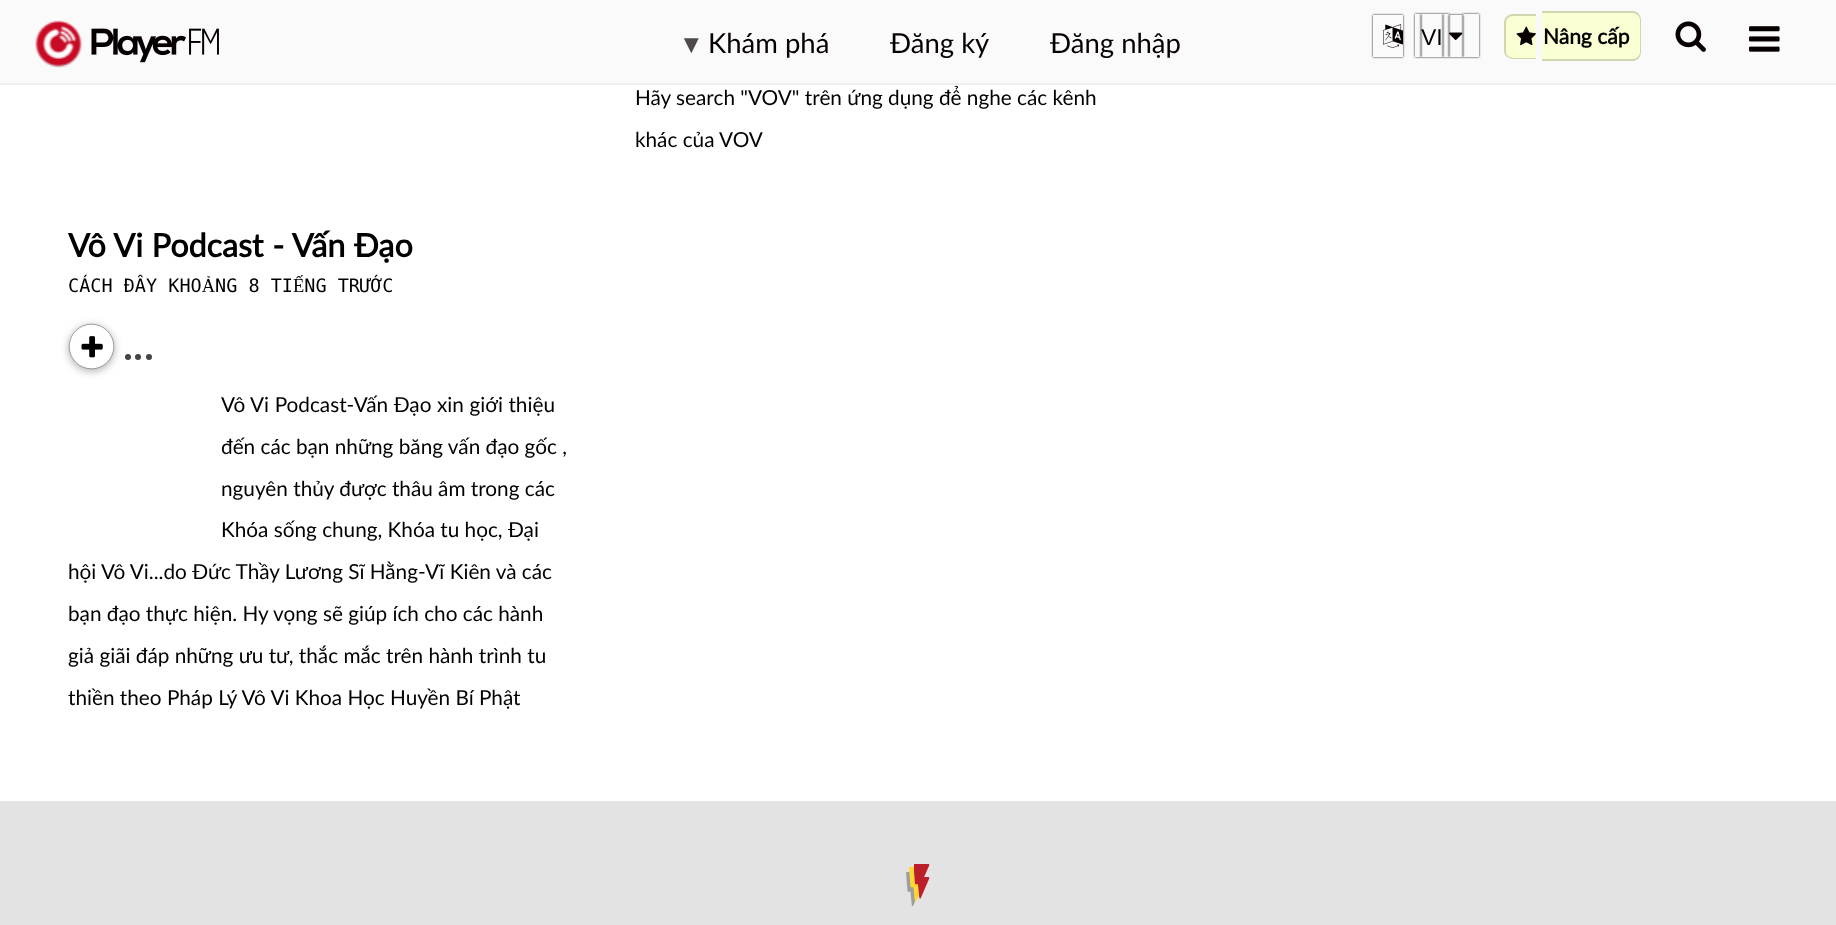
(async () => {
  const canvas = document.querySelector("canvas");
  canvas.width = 1836;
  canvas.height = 925;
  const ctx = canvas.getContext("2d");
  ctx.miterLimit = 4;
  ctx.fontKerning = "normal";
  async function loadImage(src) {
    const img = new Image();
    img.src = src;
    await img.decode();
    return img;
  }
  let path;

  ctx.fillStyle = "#ffffff";
  ctx.fillRect(0, 0, 1836, 925);
  ctx.fillStyle = "#fbfafa";
  ctx.fillRect(0, 0, 1836, 83);
  ctx.fillStyle = "#eeeeee";
  ctx.fillRect(0, 83, 1836, 2);
  ctx.drawImage(await loadImage("img/1.png"), 35, 20, 47, 48);
  ctx.drawImage(await loadImage("img/2.png"), 91, 28, 128, 35);
  ctx.save();
  path = new Path2D("M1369 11H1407V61H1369ZM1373 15H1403V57H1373Z");
  ctx.clip(path, "evenodd");
  ctx.fillStyle = "#111111";
  ctx.filter = "blur(1px)";
  ctx.beginPath();
  ctx.rect(1373, 15, 30, 42);
  ctx.fill();
  ctx.filter = "none";
  ctx.restore();
  ctx.save();
  path = new Path2D("M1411 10H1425V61H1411ZM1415 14H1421V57H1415Z");
  ctx.clip(path, "evenodd");
  ctx.fillStyle = "#111111";
  ctx.filter = "blur(1px)";
  ctx.beginPath();
  ctx.rect(1415, 14, 6, 43);
  ctx.fill();
  ctx.filter = "none";
  ctx.restore();
  ctx.save();
  path = new Path2D("M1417 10H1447V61H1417ZM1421 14H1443V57H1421Z");
  ctx.clip(path, "evenodd");
  ctx.fillStyle = "#111111";
  ctx.filter = "blur(1px)";
  ctx.beginPath();
  ctx.rect(1421, 14, 22, 43);
  ctx.fill();
  ctx.filter = "none";
  ctx.restore();
  ctx.save();
  path = new Path2D("M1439 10H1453V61H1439ZM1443 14H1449V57H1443Z");
  ctx.clip(path, "evenodd");
  ctx.fillStyle = "#111111";
  ctx.filter = "blur(1px)";
  ctx.beginPath();
  ctx.rect(1443, 14, 6, 43);
  ctx.fill();
  ctx.filter = "none";
  ctx.restore();
  ctx.save();
  path = new Path2D("M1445 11H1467V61H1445ZM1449 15H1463V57H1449Z");
  ctx.clip(path, "evenodd");
  ctx.fillStyle = "#111111";
  ctx.filter = "blur(1px)";
  ctx.beginPath();
  ctx.rect(1449, 15, 14, 42);
  ctx.fill();
  ctx.filter = "none";
  ctx.restore();
  ctx.save();
  path = new Path2D("M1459 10H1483V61H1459ZM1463 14H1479V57H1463Z");
  ctx.clip(path, "evenodd");
  ctx.fillStyle = "#111111";
  ctx.filter = "blur(1px)";
  ctx.beginPath();
  ctx.rect(1463, 14, 16, 43);
  ctx.fill();
  ctx.filter = "none";
  ctx.restore();
  ctx.drawImage(await loadImage("img/3.png"), 1383, 24, 20, 24);
  ctx.drawImage(await loadImage("img/4.png"), 1449, 32, 14, 8);
  ctx.fillStyle = "#faffd4";
  ctx.beginPath();
  ctx.roundRect(1505, 14, 31, 45, [9, 0, 0, 9]);
  ctx.fill();
  ctx.fillStyle = "#d1d6af";
  path = new Path2D("M1513 14H1536V59H1513C1508 59 1504 55 1504 51V23C1504 18 1508 14 1513 14ZM1513 16H1536V58H1513C1509 58 1506 55 1506 51V23C1506 19 1509 16 1513 16Z");
  ctx.fill(path, "evenodd");
  ctx.fillStyle = "#faffd4";
  ctx.beginPath();
  ctx.roundRect(1542, 11, 99, 49, [0, 9, 9, 0]);
  ctx.fill();
  ctx.fillStyle = "#d1d6af";
  path = new Path2D("M1542 11H1633C1637 11 1641 15 1641 20V52C1641 57 1637 61 1633 61H1542ZM1542 13H1633C1636 13 1640 16 1640 20V52C1640 56 1636 59 1633 59H1542Z");
  ctx.fill(path, "evenodd");
  ctx.drawImage(await loadImage("img/5.png"), 1516, 26, 20, 20);
  ctx.drawImage(await loadImage("img/6.png"), 1675, 21, 31, 31);
  ctx.drawImage(await loadImage("img/7.png"), 1749, 26, 31, 26);
  ctx.save();
  path = new Path2D("M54 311H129V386H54ZM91.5 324C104 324 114 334 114 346.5C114 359 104 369 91.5 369C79 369 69 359 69 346.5C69 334 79 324 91.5 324Z");
  ctx.clip(path, "evenodd");
  ctx.fillStyle = "#aaaaaa";
  ctx.filter = "blur(4.5px)";
  ctx.beginPath();
  ctx.roundRect(69, 326, 45, 45, 22.5);
  ctx.fill();
  ctx.filter = "none";
  ctx.restore();
  ctx.beginPath();
  ctx.arc(91.5, 346.5, 22.3, 0, Math.PI * 2);
  ctx.strokeStyle = "#111111";
  ctx.lineWidth = 0.4;
  ctx.stroke();
  ctx.drawImage(await loadImage("img/8.png"), 81, 336, 22, 22);
  ctx.fillStyle = "#444444";
  ctx.beginPath();
  ctx.arc(128, 357, 3, 0, Math.PI * 2);
  ctx.fill();
  ctx.beginPath();
  ctx.arc(138, 357, 3, 0, Math.PI * 2);
  ctx.fill();
  ctx.beginPath();
  ctx.arc(149, 357, 3, 0, Math.PI * 2);
  ctx.fill();
  ctx.fillStyle = "#e3e3e3";
  ctx.fillRect(0, 801, 1836, 124);
  ctx.drawImage(await loadImage("img/9.png"), 906, 864, 24, 42);
  ctx.font = "bold 27.5px DejaVu Sans";
  ctx.fillStyle = "#504b4b";
  ctx.fillText("▾", 684, 53);
  ctx.font = "27.5px Lato";
  ctx.fillStyle = "#060000";
  for (const [text, x, y] of [
    ["Khám phá", 708, 53],
    ["Đăng ký", 890, 53],
    ["Đăng nhập", 1050, 53],
  ]) {
    ctx.fillText(text, x, y);
  }
  ctx.font = "23px Liberation Sans";
  ctx.fillText("VI", 1421, 45);
  ctx.font = "bold 21px Lato";
  ctx.fillText("Nâng cấp", 1543, 44);
  ctx.font = "20.75px Lato";
  ctx.fillStyle = "#000000";
  ctx.fillText("Hãy search \"VOV\" trên ứng dụng để nghe các kênh", 635, 105);
  ctx.fillText("khác của VOV", 635, 147);
  ctx.wordSpacing = "0.5px";
  ctx.font = "bold 32.25px Lato";
  ctx.fillText("Vô Vi Podcast - Vấn Đạo", 68, 257);
  ctx.wordSpacing = "0px";
  ctx.font = "18.5px DejaVu Sans Mono";
  ctx.fillText("CÁCH ĐÂY KHOẢNG 8 TIẾNG TRƯỚC", 68, 292);
  ctx.wordSpacing = "0.25px";
  ctx.font = "20.75px Lato";
  ctx.fillText("Vô Vi Podcast-Vấn Đạo xin giới thiệu", 221, 412);
  ctx.wordSpacing = "0px";
  for (const [text, x, y] of [
    ["đến các bạn những băng vấn đạo gốc ,", 221, 454],
    ["nguyên thủy được thâu âm trong các", 221, 496],
    ["Khóa sống chung, Khóa tu học, Đại", 221, 537],
    ["hội Vô Vi...do Đức Thầy Lương Sĩ Hằng-Vĩ Kiên và các", 68, 579],
    ["bạn đạo thực hiện. Hy vọng sẽ giúp ích cho các hành", 68, 621],
    ["giả giãi đáp những ưu tư, thắc mắc trên hành trình tu", 68, 663],
    ["thiền theo Pháp Lý Vô Vi Khoa Học Huyền Bí Phật", 68, 705],
  ]) {
    ctx.fillText(text, x, y);
  }
})();
